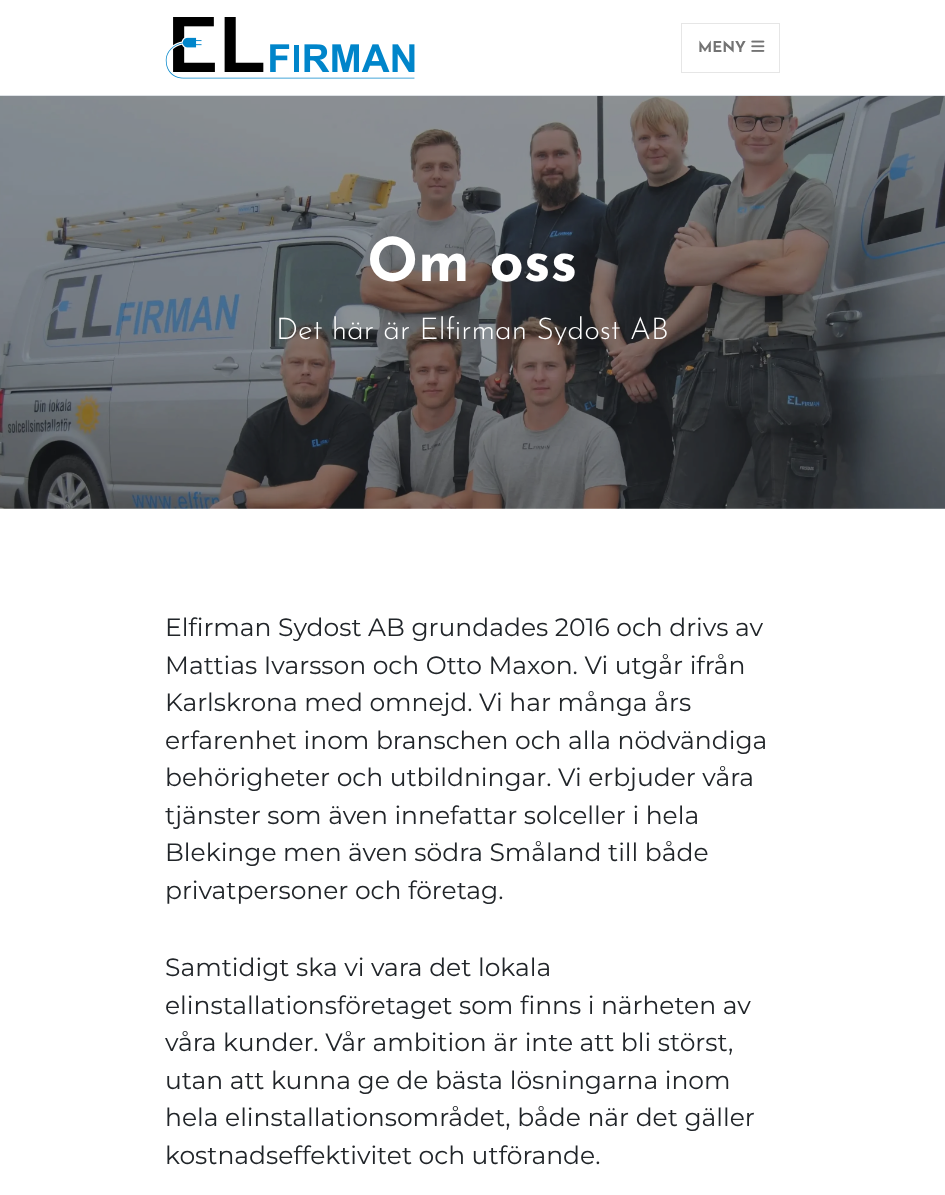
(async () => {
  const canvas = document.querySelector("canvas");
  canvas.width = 945;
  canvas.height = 1195;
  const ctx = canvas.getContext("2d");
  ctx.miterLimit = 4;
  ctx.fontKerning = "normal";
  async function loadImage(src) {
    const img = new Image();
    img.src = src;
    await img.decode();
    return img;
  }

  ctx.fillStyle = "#ffffff";
  ctx.fillRect(0, 0, 945, 1195);
  ctx.fillStyle = "#dee2e6";
  ctx.fillRect(0, 95, 945, 1);
  ctx.drawImage(await loadImage("img/1.png"), 165, 17, 250, 62);
  ctx.strokeStyle = "#e6e6e6";
  ctx.strokeRect(681.5, 23.5, 98, 49);
  ctx.drawImage(await loadImage("img/2.png"), 751, 40, 14, 12);
  ctx.drawImage(await loadImage("img/3.png"), 0, 96, 945, 413);
  ctx.font = "bold 15px Josefin Sans";
  ctx.fillStyle = "#737373";
  ctx.fillText("MENY", 698, 52);
  ctx.font = "bold 60px Josefin Sans";
  ctx.fillStyle = "#ffffff";
  ctx.fillText("Om oss", 367, 281);
  ctx.font = "300 30px Josefin Sans";
  ctx.fillText("Det här är Elfirman Sydost AB", 276, 339);
  ctx.font = "100 25px Montserrat";
  ctx.fillStyle = "#212529";
  for (const [text, x, y] of [
    ["Elfirman Sydost AB grundades 2016 och drivs av", 165, 636],
    ["Mattias Ivarsson och Otto Maxon. Vi utgår ifrån", 165, 674],
    ["Karlskrona med omnejd. Vi har många års", 165, 711],
    ["erfarenhet inom branschen och alla nödvändiga", 165, 749],
    ["behörigheter och utbildningar. Vi erbjuder våra", 165, 786],
    ["tjänster som även innefattar solceller i hela", 165, 824],
    ["Blekinge men även södra Småland till både", 165, 861],
    ["privatpersoner och företag.", 165, 899],
    ["Samtidigt ska vi vara det lokala", 165, 976],
    ["elinstallationsföretaget som finns i närheten av", 165, 1014],
    ["våra kunder. Vår ambition är inte att bli störst,", 165, 1051],
    ["utan att kunna ge de bästa lösningarna inom", 165, 1089],
    ["hela elinstallationsområdet, både när det gäller", 165, 1126],
    ["kostnadseffektivitet och utförande.", 165, 1164],
  ]) {
    ctx.fillText(text, x, y);
  }
})();
